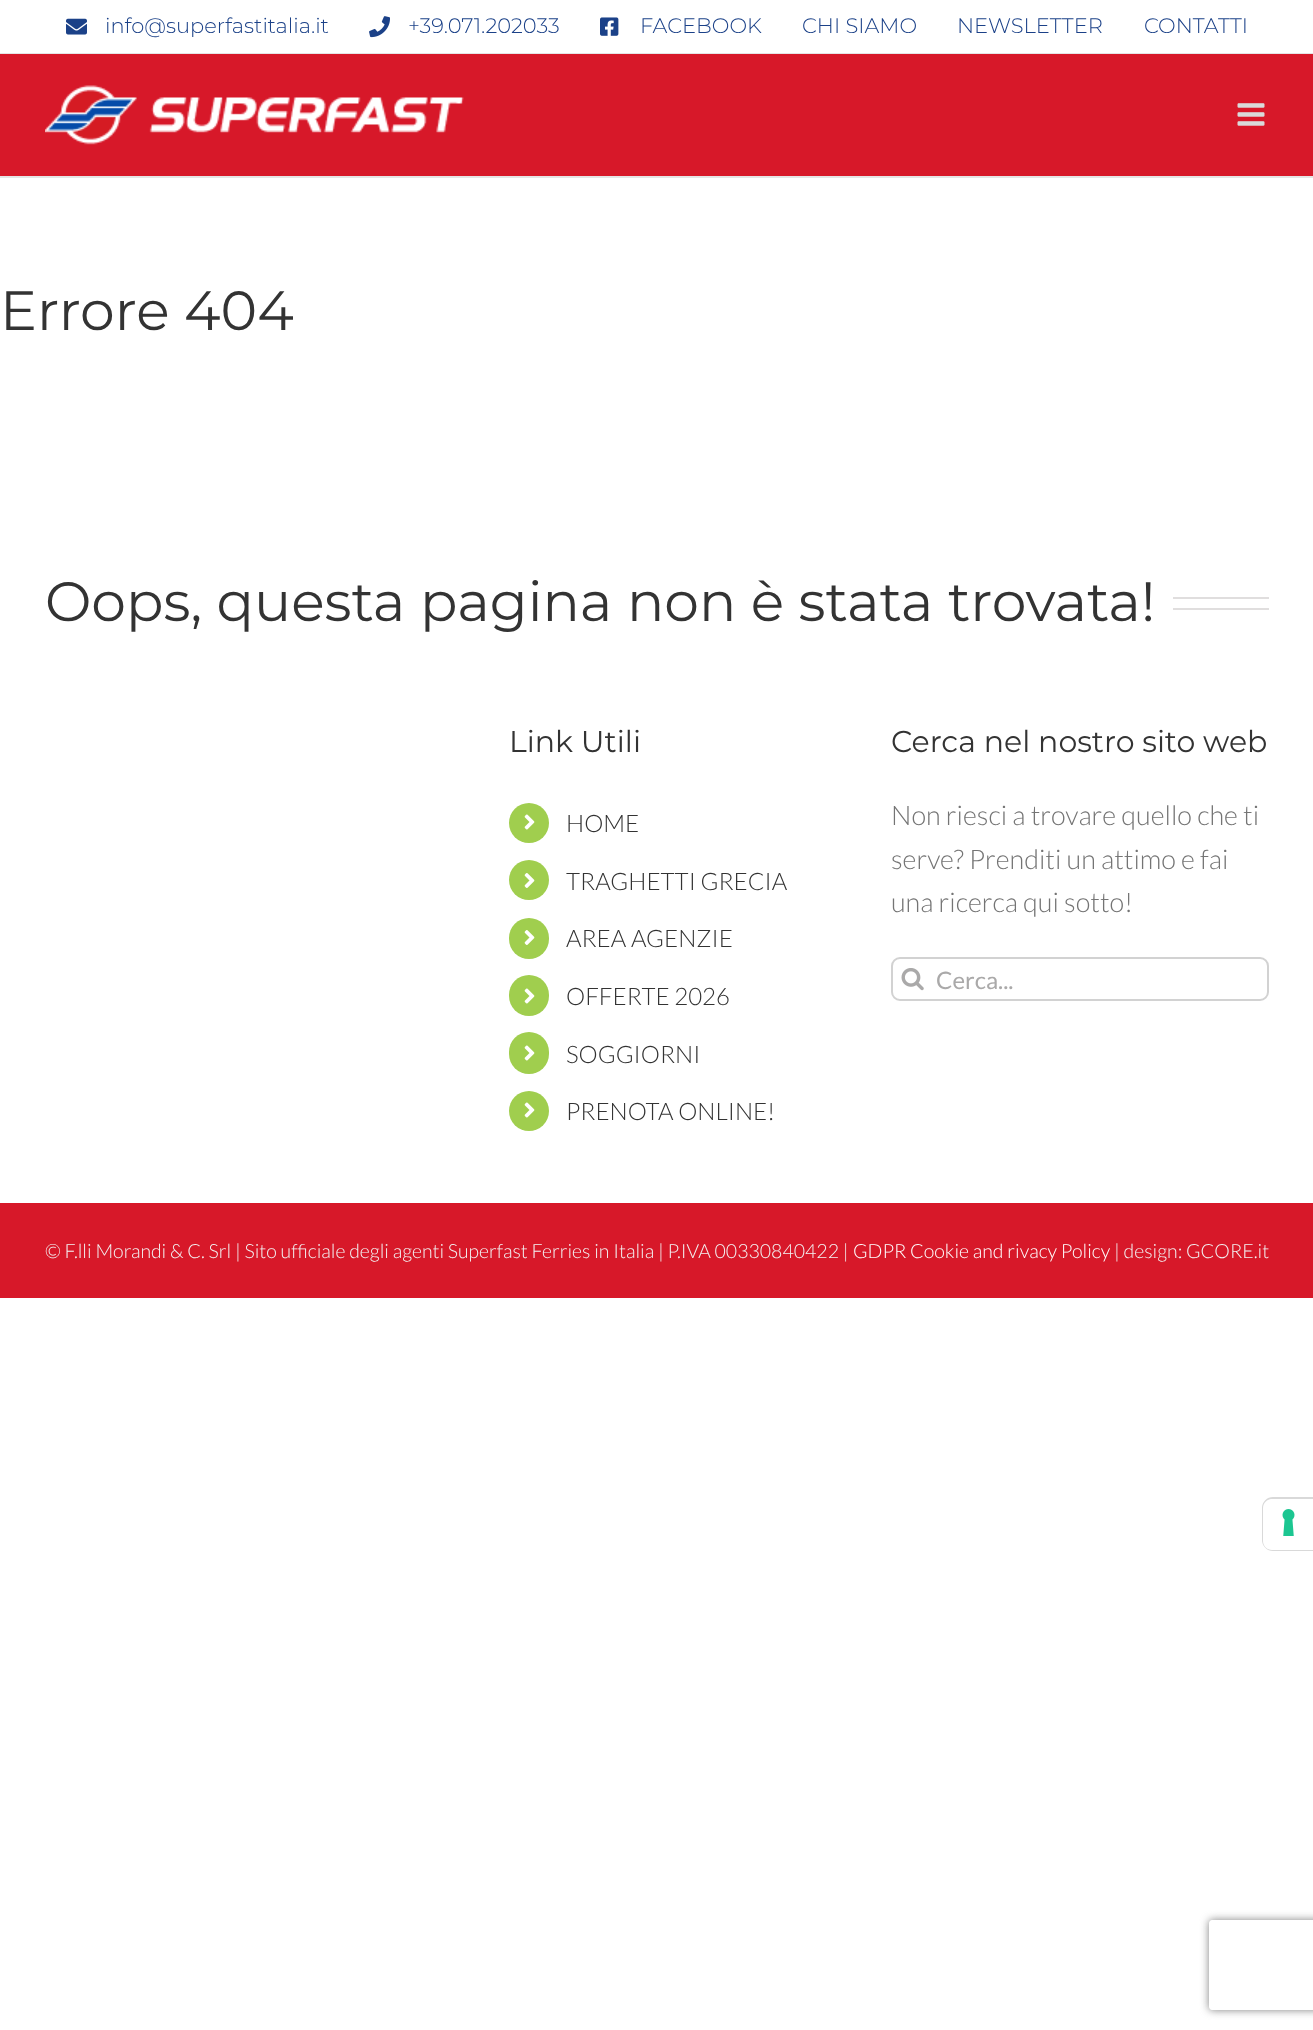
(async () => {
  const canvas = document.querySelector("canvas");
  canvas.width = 1313;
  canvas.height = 2030;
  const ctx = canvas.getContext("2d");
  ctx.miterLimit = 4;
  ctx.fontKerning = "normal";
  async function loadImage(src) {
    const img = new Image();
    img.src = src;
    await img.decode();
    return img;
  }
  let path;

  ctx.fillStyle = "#ffffff";
  ctx.fillRect(0, 0, 1313, 2030);
  ctx.fillStyle = "#e5e5e5";
  ctx.fillRect(0, 53, 1313, 1);
  ctx.drawImage(await loadImage("img/1.png"), 66, 18, 21, 17);
  ctx.drawImage(await loadImage("img/2.png"), 369, 16, 21, 22);
  ctx.drawImage(await loadImage("img/3.png"), 600, 17, 19, 19);
  ctx.fillStyle = "#d71829";
  ctx.fillRect(0, 54, 1313, 122);
  ctx.fillStyle = "#e5e5e5";
  ctx.fillRect(0, 176, 1313, 2);
  ctx.drawImage(await loadImage("img/4.png"), 45, 85, 419, 60);
  ctx.drawImage(await loadImage("img/5.png"), 1237, 103, 28, 23);
  ctx.fillStyle = "#e0dede";
  ctx.fillRect(1173, 597, 96, 2);
  ctx.fillRect(1173, 608, 96, 2);
  ctx.fillStyle = "#a0ce4e";
  ctx.beginPath();
  ctx.arc(529, 823, 20, 0, Math.PI * 2);
  ctx.fill();
  ctx.drawImage(await loadImage("img/6.png"), 524, 814, 11, 16);
  ctx.beginPath();
  ctx.arc(529, 880, 20, 0, Math.PI * 2);
  ctx.fill();
  ctx.drawImage(await loadImage("img/7.png"), 524, 873, 11, 15);
  ctx.beginPath();
  ctx.roundRect(509, 918, 40, 41, 20);
  ctx.fill();
  ctx.drawImage(await loadImage("img/7.png"), 524, 930, 11, 15);
  ctx.beginPath();
  ctx.roundRect(509, 975, 40, 41, 20);
  ctx.fill();
  ctx.drawImage(await loadImage("img/6.png"), 524, 988, 11, 16);
  ctx.beginPath();
  ctx.roundRect(509, 1032, 40, 42, 20);
  ctx.fill();
  ctx.drawImage(await loadImage("img/6.png"), 524, 1045, 11, 16);
  ctx.beginPath();
  ctx.arc(529, 1111, 20, 0, Math.PI * 2);
  ctx.fill();
  ctx.drawImage(await loadImage("img/6.png"), 524, 1102, 11, 16);
  ctx.beginPath();
  ctx.roundRect(892, 958, 376, 42, 8);
  ctx.strokeStyle = "#d2d2d2";
  ctx.lineWidth = 2;
  ctx.stroke();
  ctx.drawImage(await loadImage("img/8.png"), 901, 968, 23, 23);
  ctx.fillStyle = "#d71829";
  ctx.fillRect(0, 1203, 1313, 95);
  path = new Path2D("M1273 1498H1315V1550H1273C1267.5 1550 1263 1545.5 1263 1540V1508C1263 1502.5 1267.5 1498 1273 1498Z");
  ctx.strokeStyle = "#d9d9d9";
  ctx.stroke(path);
  ctx.fillStyle = "#ffffff";
  path = new Path2D("M1272 1499H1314V1550H1272C1267 1550 1263 1546 1263 1541V1508C1263 1503 1267 1499 1272 1499Z");
  ctx.fill(path);
  ctx.drawImage(await loadImage("img/9.png"), 1282, 1509, 13, 27);
  ctx.save();
  path = new Path2D("M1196 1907H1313V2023H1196ZM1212 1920H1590C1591.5 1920 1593 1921.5 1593 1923V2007C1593 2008.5 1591.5 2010 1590 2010H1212C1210.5 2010 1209 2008.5 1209 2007V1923C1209 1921.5 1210.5 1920 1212 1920Z");
  ctx.clip(path, "evenodd");
  ctx.fillStyle = "#808080";
  ctx.filter = "blur(4px)";
  ctx.beginPath();
  ctx.roundRect(1209, 1920, 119, 90, 3);
  ctx.fill();
  ctx.filter = "none";
  ctx.restore();
  ctx.font = "300 21px Montserrat";
  ctx.fillStyle = "#1b4188";
  for (const [text, x, y] of [
    ["info@superfastitalia.it", 105, 33],
    ["+39.071.202033", 408, 33],
    ["FACEBOOK", 640, 33],
    ["CHI SIAMO", 802, 33],
    ["NEWSLETTER", 957, 33],
    ["CONTATTI", 1144, 33],
  ]) {
    ctx.fillText(text, x, y);
  }
  ctx.font = "55.25px Montserrat";
  ctx.fillStyle = "#333333";
  ctx.fillText("Errore 404", 0, 330);
  ctx.fillText("Oops, questa pagina non è stata trovata!", 45, 621);
  ctx.font = "30px Montserrat";
  ctx.fillText("Link Utili", 509, 752);
  ctx.font = "300 24px Lato";
  for (const [text, x, y] of [
    ["HOME", 566, 832],
    ["TRAGHETTI GRECIA", 566, 890],
    ["AREA AGENZIE", 566, 947],
    ["OFFERTE 2026", 566, 1005],
    ["SOGGIORNI", 566, 1063],
    ["PRENOTA ONLINE!", 566, 1120],
  ]) {
    ctx.fillText(text, x, y);
  }
  ctx.font = "30px Montserrat";
  ctx.fillText("Cerca nel nostro sito web", 891, 752);
  ctx.font = "300 27px Lato";
  ctx.fillStyle = "#747474";
  for (const [text, x, y] of [
    ["Non riesci a trovare quello che ti", 891, 825],
    ["serve? Prenditi un attimo e fai", 891, 869],
    ["una ricerca qui sotto!", 891, 912],
  ]) {
    ctx.fillText(text, x, y);
  }
  ctx.font = "24px Lato";
  ctx.fillStyle = "#aaa9a9";
  ctx.fillText("Cerca...", 936, 989);
  ctx.font = "300 19.5px Lato";
  ctx.fillStyle = "#f3f3f3";
  ctx.fillText("© F.lli Morandi & C. Srl | Sito ufficiale degli agenti Superfast Ferries in Italia | P.IVA 00330840422 |", 45, 1258);
  ctx.fillStyle = "#ffffff";
  ctx.fillText("GDPR Cookie and rivacy Policy", 853, 1258);
  ctx.fillStyle = "#f3f3f3";
  ctx.fillText("| design: GCORE.it", 1114, 1258);
})();
